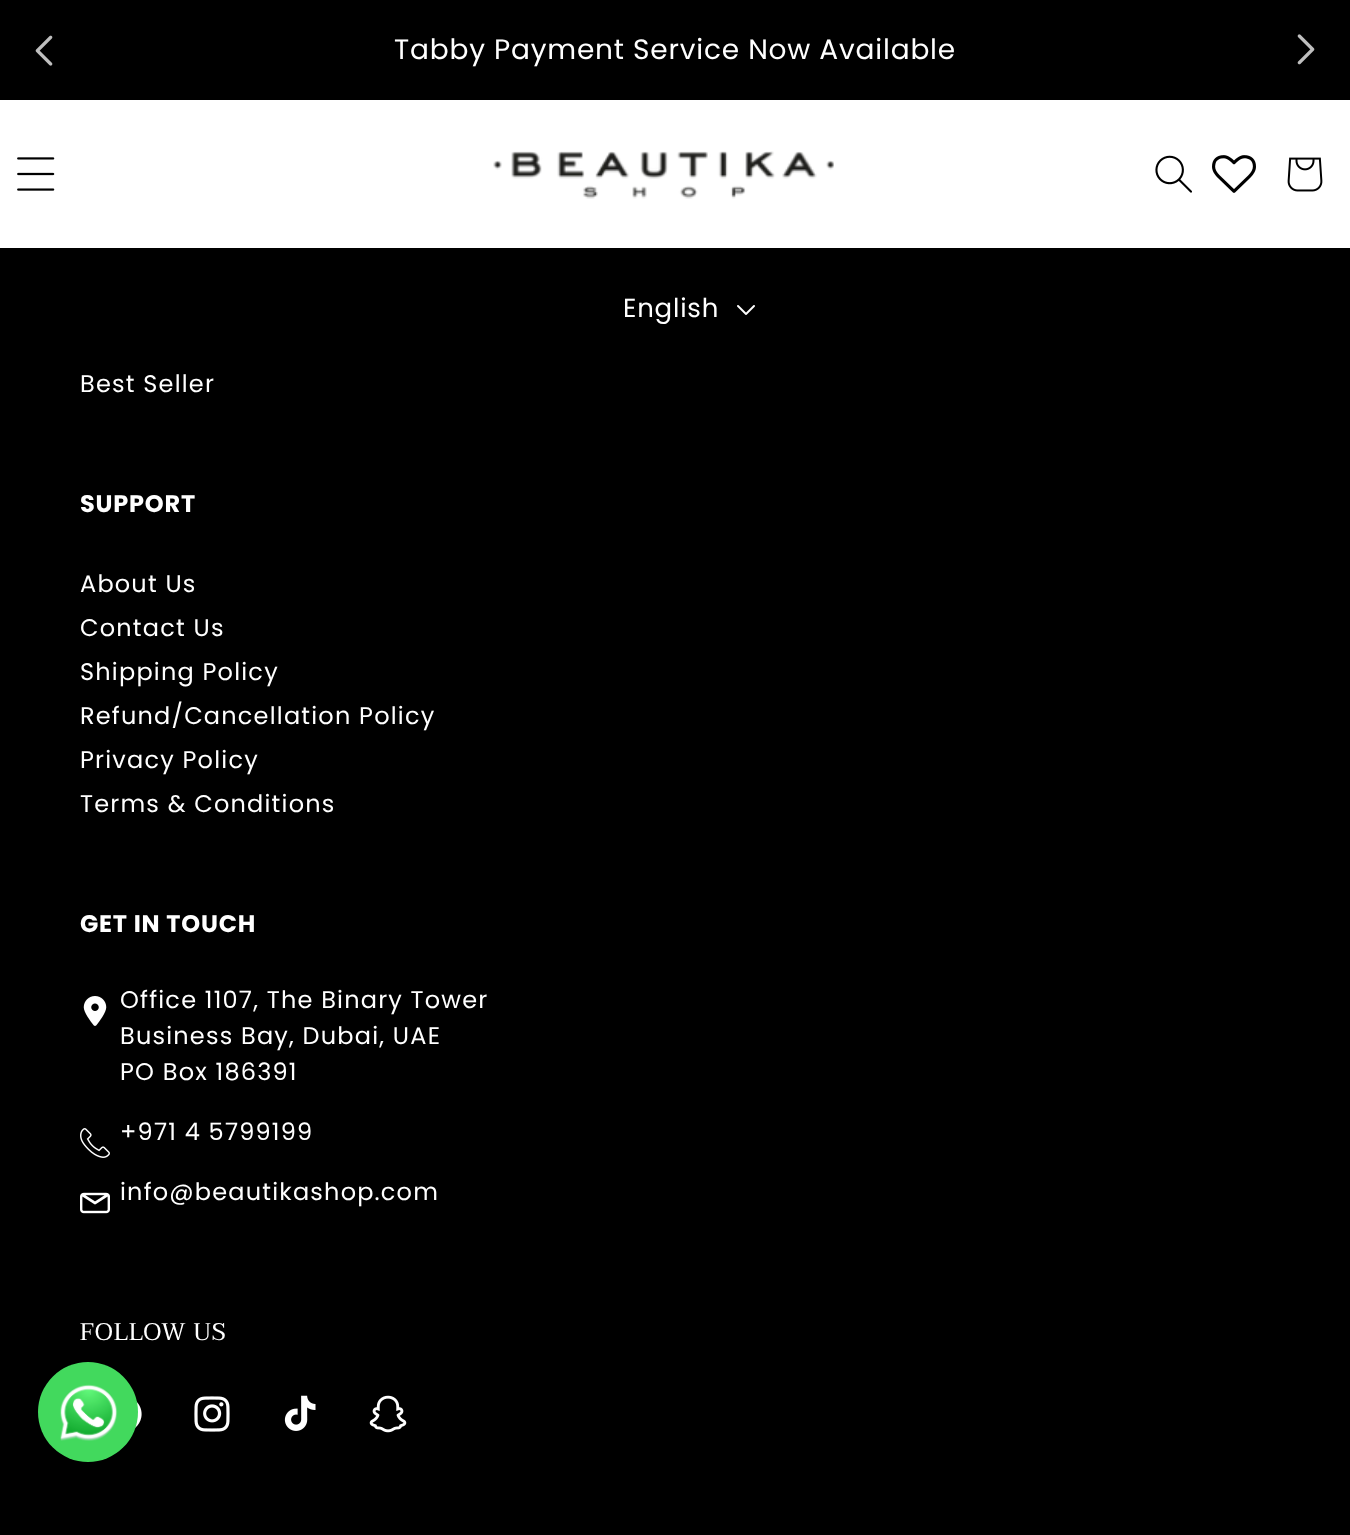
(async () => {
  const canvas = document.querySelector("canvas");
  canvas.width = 1350;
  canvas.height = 1535;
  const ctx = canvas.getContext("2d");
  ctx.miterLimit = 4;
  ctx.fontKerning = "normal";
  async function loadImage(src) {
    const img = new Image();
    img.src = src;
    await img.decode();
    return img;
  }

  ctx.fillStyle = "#000000";
  ctx.fillRect(0, 0, 1350, 1535);
  ctx.drawImage(await loadImage("img/1.png"), 35, 35, 18, 31);
  ctx.drawImage(await loadImage("img/2.png"), 1297, 34, 18, 31);
  ctx.fillStyle = "#ffffff";
  ctx.fillRect(0, 100, 1350, 148);
  ctx.drawImage(await loadImage("img/3.png"), 17, 157, 38, 34);
  ctx.drawImage(await loadImage("img/4.png"), 493, 151, 341, 48);
  ctx.drawImage(await loadImage("img/5.png"), 1155, 155, 37, 38);
  ctx.drawImage(await loadImage("img/6.png"), 1212, 155, 44, 38);
  ctx.drawImage(await loadImage("img/7.png"), 1287, 157, 36, 35);
  ctx.drawImage(await loadImage("img/8.png"), 737, 305, 18, 10);
  ctx.drawImage(await loadImage("img/9.png"), 83, 996, 24, 30);
  ctx.drawImage(await loadImage("img/10.png"), 80, 1128, 30, 30);
  ctx.drawImage(await loadImage("img/11.png"), 80, 1192, 30, 22);
  ctx.drawImage(await loadImage("img/12.png"), 135, 1401, 7, 27);
  ctx.drawImage(await loadImage("img/13.png"), 194, 1396, 36, 36);
  ctx.drawImage(await loadImage("img/14.png"), 284, 1395, 32, 36);
  ctx.drawImage(await loadImage("img/15.png"), 369, 1395, 38, 38);
  ctx.fillStyle = "#42d95d";
  ctx.beginPath();
  ctx.arc(88, 1412, 50, 0, Math.PI * 2);
  ctx.fill();
  ctx.drawImage(await loadImage("img/16.png"), 60, 1384, 58, 57);
  ctx.letterSpacing = "0.8px";
  ctx.font = "28px Poppins";
  ctx.fillStyle = "#ffffff";
  ctx.fillText("Tabby Payment Service Now Available", 394, 59);
  ctx.font = "26px Poppins";
  ctx.fillText("English", 623, 317);
  ctx.letterSpacing = "1.2px";
  ctx.font = "24px Poppins";
  ctx.fillText("Best Seller", 80, 392);
  ctx.letterSpacing = "0.8px";
  ctx.font = "bold 24px Poppins";
  ctx.fillText("SUPPORT", 80, 512);
  ctx.letterSpacing = "1.2px";
  ctx.font = "24px Poppins";
  for (const [text, x, y] of [
    ["About Us", 80, 592],
    ["Contact Us", 80, 636],
    ["Shipping Policy", 80, 680],
    ["Refund/Cancellation Policy", 80, 724],
    ["Privacy Policy", 80, 768],
    ["Terms & Conditions", 80, 812],
  ]) {
    ctx.fillText(text, x, y);
  }
  ctx.letterSpacing = "0.8px";
  ctx.font = "bold 24px Poppins";
  ctx.fillText("GET IN TOUCH", 80, 932);
  ctx.letterSpacing = "1.2px";
  ctx.font = "24px Poppins";
  for (const [text, x, y] of [
    ["Office 1107, The Binary Tower", 120, 1008],
    ["Business Bay, Dubai, UAE", 120, 1044],
    ["PO Box 186391", 120, 1080],
    ["+971 4 5799199", 120, 1140],
    ["info@beautikashop.com", 120, 1200],
  ]) {
    ctx.fillText(text, x, y);
  }
  ctx.letterSpacing = "0.8px";
  ctx.font = "24px Taviraj";
  ctx.fillText("FOLLOW US", 80, 1340);
})();
